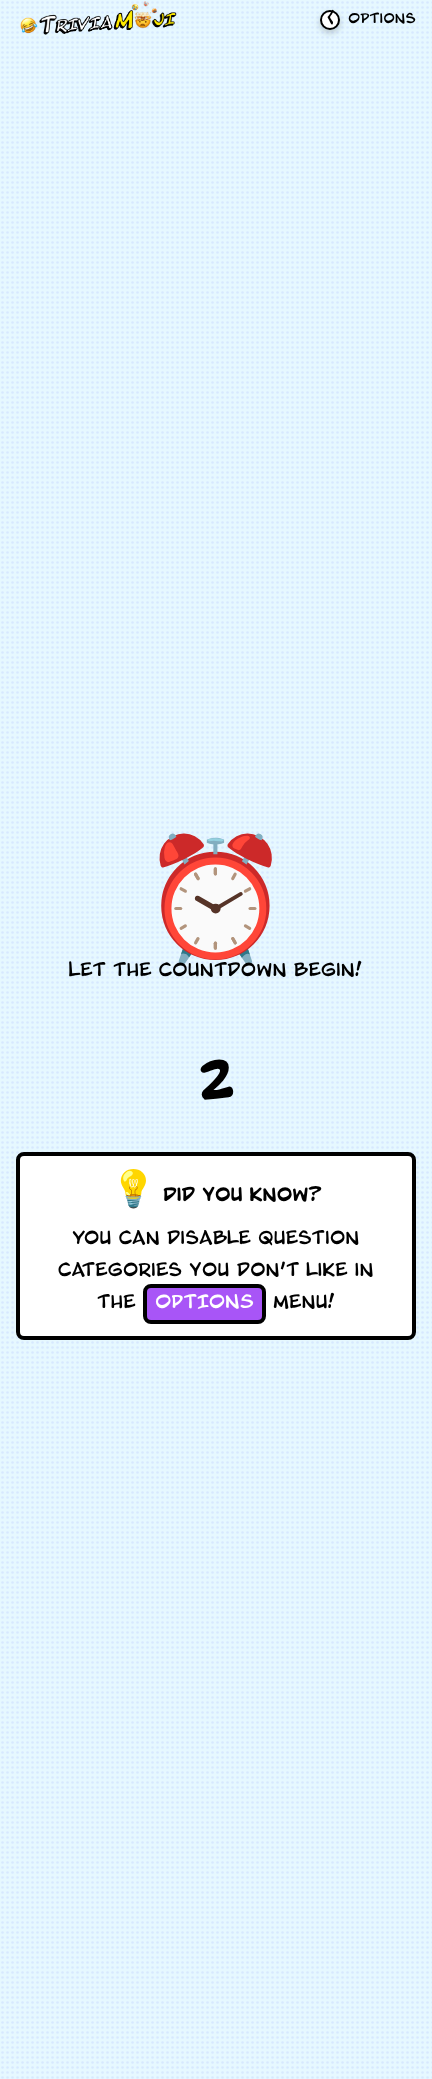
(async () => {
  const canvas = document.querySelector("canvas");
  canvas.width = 432;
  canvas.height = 2079;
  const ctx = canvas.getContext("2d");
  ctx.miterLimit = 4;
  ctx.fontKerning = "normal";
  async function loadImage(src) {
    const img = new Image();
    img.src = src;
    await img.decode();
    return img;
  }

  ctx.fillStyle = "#e6f8ff";
  ctx.fillRect(0, 0, 432, 2079);
  ctx.drawImage(await loadImage("img/1.png"), 1, 1, 431, 2078);
  ctx.drawImage(await loadImage("img/2.png"), 20, 1, 157, 34);
  ctx.fillStyle = "rgba(0, 0, 0, 0.11)";
  ctx.filter = "blur(3px)";
  ctx.beginPath();
  ctx.roundRect(320, 13, 20, 20, 10);
  ctx.fill();
  ctx.filter = "none";
  ctx.fillStyle = "rgba(0, 0, 0, 0.09)";
  ctx.filter = "blur(3px)";
  ctx.beginPath();
  ctx.roundRect(320, 13, 20, 20, 10);
  ctx.fill();
  ctx.filter = "none";
  ctx.fillStyle = "#ffffff";
  ctx.beginPath();
  ctx.arc(330, 20, 9, 0, Math.PI * 2);
  ctx.fill();
  ctx.strokeStyle = "#000000";
  ctx.lineWidth = 2;
  ctx.stroke();
  ctx.beginPath();
  ctx.roundRect(18, 1154, 396, 184, 6);
  ctx.fill();
  ctx.lineWidth = 4;
  ctx.stroke();
  ctx.fillStyle = "#a855f7";
  ctx.beginPath();
  ctx.roundRect(145, 1286, 119, 36, 6);
  ctx.fill();
  ctx.stroke();
  ctx.font = "14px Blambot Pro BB";
  ctx.fillStyle = "#000000";
  ctx.fillText("<", 327, 23);
  ctx.font = "12px Blambot Pro BB";
  ctx.fillText("Options", 348, 23);
  ctx.font = "120px Noto Color Emoji";
  ctx.fillText("⏰", 141, 940);
  ctx.font = "16px Blambot Pro BB";
  ctx.fillText("Let the countdown begin!", 69, 976);
  ctx.font = "bold 48px Blambot Pro BB";
  ctx.fillText("2", 198, 1100);
  ctx.font = "bold 36px Noto Color Emoji";
  ctx.fillText("💡", 111, 1201);
  ctx.font = "bold 16px Blambot Pro BB";
  ctx.fillText("Did you know?", 163, 1201);
  ctx.font = "16px Blambot Pro BB";
  for (const [text, x, y] of [
    ["You can disable question", 72, 1244],
    ["categories you don't like in", 58, 1276],
    ["the", 97, 1308],
  ]) {
    ctx.fillText(text, x, y);
  }
  ctx.fillStyle = "#ffffff";
  ctx.fillText("OPTIONS", 155, 1308);
  ctx.fillStyle = "#000000";
  ctx.fillText("menu!", 273, 1308);
})();
